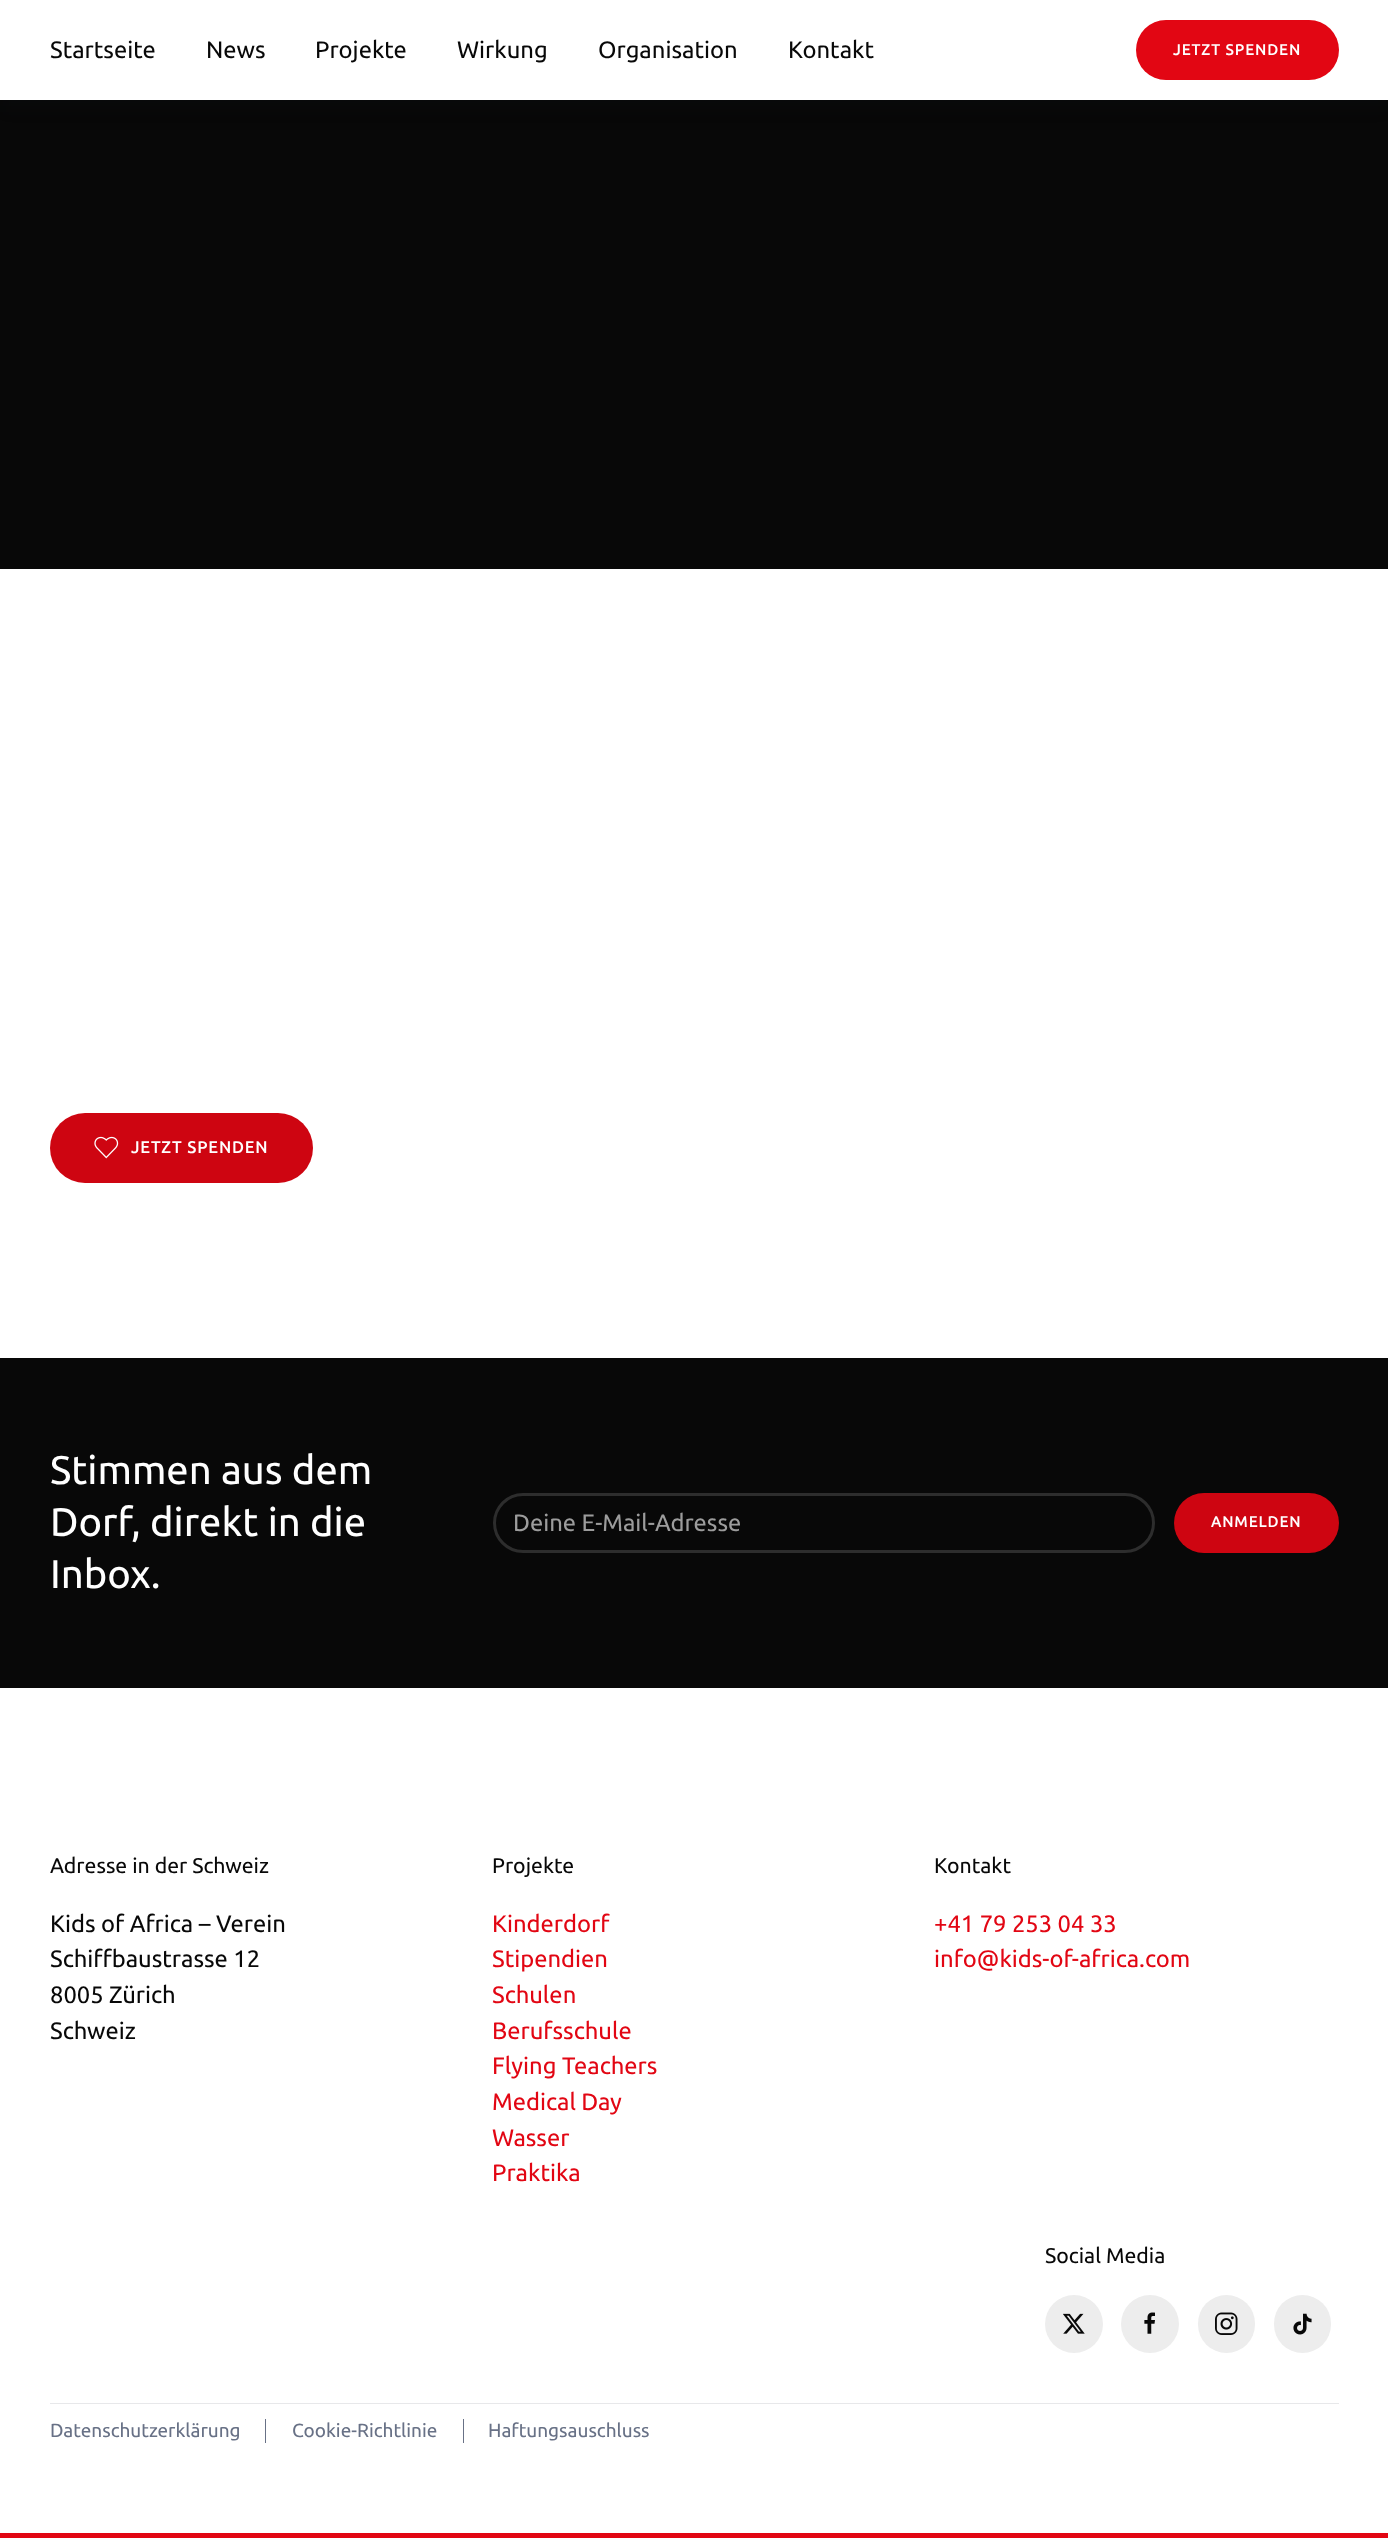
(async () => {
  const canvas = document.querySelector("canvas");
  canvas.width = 1388;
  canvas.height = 2538;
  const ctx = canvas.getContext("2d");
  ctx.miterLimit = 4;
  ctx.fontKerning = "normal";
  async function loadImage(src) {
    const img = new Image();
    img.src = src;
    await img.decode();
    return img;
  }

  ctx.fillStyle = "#ffffff";
  ctx.fillRect(0, 0, 1388, 2538);
  ctx.fillStyle = "#e20613";
  ctx.fillRect(0, 2533, 1388, 5);
  ctx.fillStyle = "#080808";
  ctx.fillRect(0, 100, 1388, 469);
  ctx.fillStyle = "rgba(39, 44, 63, 0.06)";
  ctx.filter = "blur(9.5px)";
  ctx.beginPath();
  ctx.rect(0, 6, 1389, 100);
  ctx.fill();
  ctx.filter = "none";
  ctx.fillStyle = "#ffffff";
  ctx.fillRect(0, 0, 1388, 100);
  ctx.fillStyle = "#e20613";
  ctx.beginPath();
  ctx.roundRect(1136, 20, 203, 60, 30);
  ctx.fill();
  ctx.fillStyle = "#ce0511";
  ctx.beginPath();
  ctx.roundRect(50, 1113, 263, 70, 35);
  ctx.fill();
  ctx.drawImage(await loadImage("img/1.png"), 94, 1136, 25, 23);
  ctx.fillStyle = "#080808";
  ctx.fillRect(0, 1358, 1388, 330);
  ctx.beginPath();
  ctx.roundRect(494.5, 1494.5, 659, 57, 28.5);
  ctx.strokeStyle = "#2d2d2d";
  ctx.lineWidth = 3;
  ctx.stroke();
  ctx.fillStyle = "#ce0511";
  ctx.beginPath();
  ctx.roundRect(1174, 1493, 165, 60, 30);
  ctx.fill();
  ctx.fillStyle = "#ededed";
  ctx.beginPath();
  ctx.arc(1074, 2324, 29, 0, Math.PI * 2);
  ctx.fill();
  ctx.drawImage(await loadImage("img/2.png"), 1063, 2313, 22, 21);
  ctx.beginPath();
  ctx.arc(1150, 2324, 29, 0, Math.PI * 2);
  ctx.fill();
  ctx.drawImage(await loadImage("img/3.png"), 1144, 2312, 11, 22);
  ctx.beginPath();
  ctx.roundRect(1198, 2295, 57, 58, 28.5);
  ctx.fill();
  ctx.drawImage(await loadImage("img/4.png"), 1215, 2312, 23, 23);
  ctx.beginPath();
  ctx.roundRect(1274, 2295, 57, 58, 28.5);
  ctx.fill();
  ctx.drawImage(await loadImage("img/5.png"), 1293, 2313, 19, 22);
  for (const [x, y, w, h, color] of [
    [50, 2403, 1289, 1, "#e7e8ea"],
    [265, 2419, 1, 24, "#687186"],
    [463, 2419, 1, 24, "#687186"],
  ]) {
    ctx.fillStyle = color;
    ctx.fillRect(x, y, w, h);
  }
  ctx.font = "23.75px Ubuntu";
  ctx.fillStyle = "#080808";
  for (const [text, x, y] of [
    ["Startseite", 50, 58],
    ["News", 206, 58],
    ["Projekte", 315, 58],
    ["Wirkung", 457, 58],
    ["Organisation", 598, 58],
    ["Kontakt", 788, 58],
  ]) {
    ctx.fillText(text, x, y);
  }
  ctx.letterSpacing = "1.25px";
  ctx.font = "bold 15px Ubuntu";
  ctx.fillStyle = "#ffffff";
  ctx.fillText("JETZT SPENDEN", 1173, 55);
  ctx.font = "bold 16.25px Ubuntu";
  ctx.fillText("JETZT SPENDEN", 131, 1153);
  ctx.letterSpacing = "0px";
  ctx.font = "40px Ubuntu";
  for (const [text, x, y] of [
    ["Stimmen aus dem", 50, 1484],
    ["Dorf, direkt in die", 50, 1536],
    ["Inbox.", 50, 1588],
  ]) {
    ctx.fillText(text, x, y);
  }
  ctx.font = "23.75px Ubuntu";
  ctx.fillStyle = "#9c9c9c";
  ctx.fillText("Deine E-Mail-Adresse", 513, 1531);
  ctx.letterSpacing = "1.25px";
  ctx.font = "bold 15px Ubuntu";
  ctx.fillStyle = "#ffffff";
  ctx.fillText("ANMELDEN", 1211, 1527);
  ctx.letterSpacing = "0px";
  ctx.font = "21.25px Ubuntu";
  ctx.fillStyle = "#080808";
  ctx.fillText("Adresse in der Schweiz", 50, 1873);
  ctx.font = "23.75px Ubuntu";
  for (const [text, x, y] of [
    ["Kids of Africa – Verein", 50, 1932],
    ["Schiffbaustrasse 12", 50, 1967],
    ["8005 Zürich", 50, 2003],
    ["Schweiz", 50, 2039],
  ]) {
    ctx.fillText(text, x, y);
  }
  ctx.font = "21.25px Ubuntu";
  ctx.fillText("Projekte", 492, 1873);
  ctx.font = "23.75px Ubuntu";
  ctx.fillStyle = "#e20613";
  for (const [text, x, y] of [
    ["Kinderdorf", 492, 1932],
    ["Stipendien", 492, 1967],
    ["Schulen", 492, 2003],
    ["Berufsschule", 492, 2039],
    ["Flying Teachers", 492, 2074],
    ["Medical Day", 492, 2110],
    ["Wasser", 492, 2146],
    ["Praktika", 492, 2181],
  ]) {
    ctx.fillText(text, x, y);
  }
  ctx.font = "21.25px Ubuntu";
  ctx.fillStyle = "#080808";
  ctx.fillText("Kontakt", 934, 1873);
  ctx.font = "23.75px Ubuntu";
  ctx.fillStyle = "#e20613";
  ctx.fillText("+41 79 253 04 33", 934, 1932);
  ctx.fillText("info@kids-of-africa.com", 934, 1967);
  ctx.font = "21.25px Ubuntu";
  ctx.fillStyle = "#080808";
  ctx.fillText("Social Media", 1045, 2263);
  ctx.font = "19px Ubuntu";
  ctx.fillStyle = "#687186";
  for (const [text, x, y] of [
    ["Datenschutzerklärung", 50, 2437],
    ["Cookie-Richtlinie", 292, 2437],
    ["Haftungsauschluss", 488, 2437],
  ]) {
    ctx.fillText(text, x, y);
  }
})();
